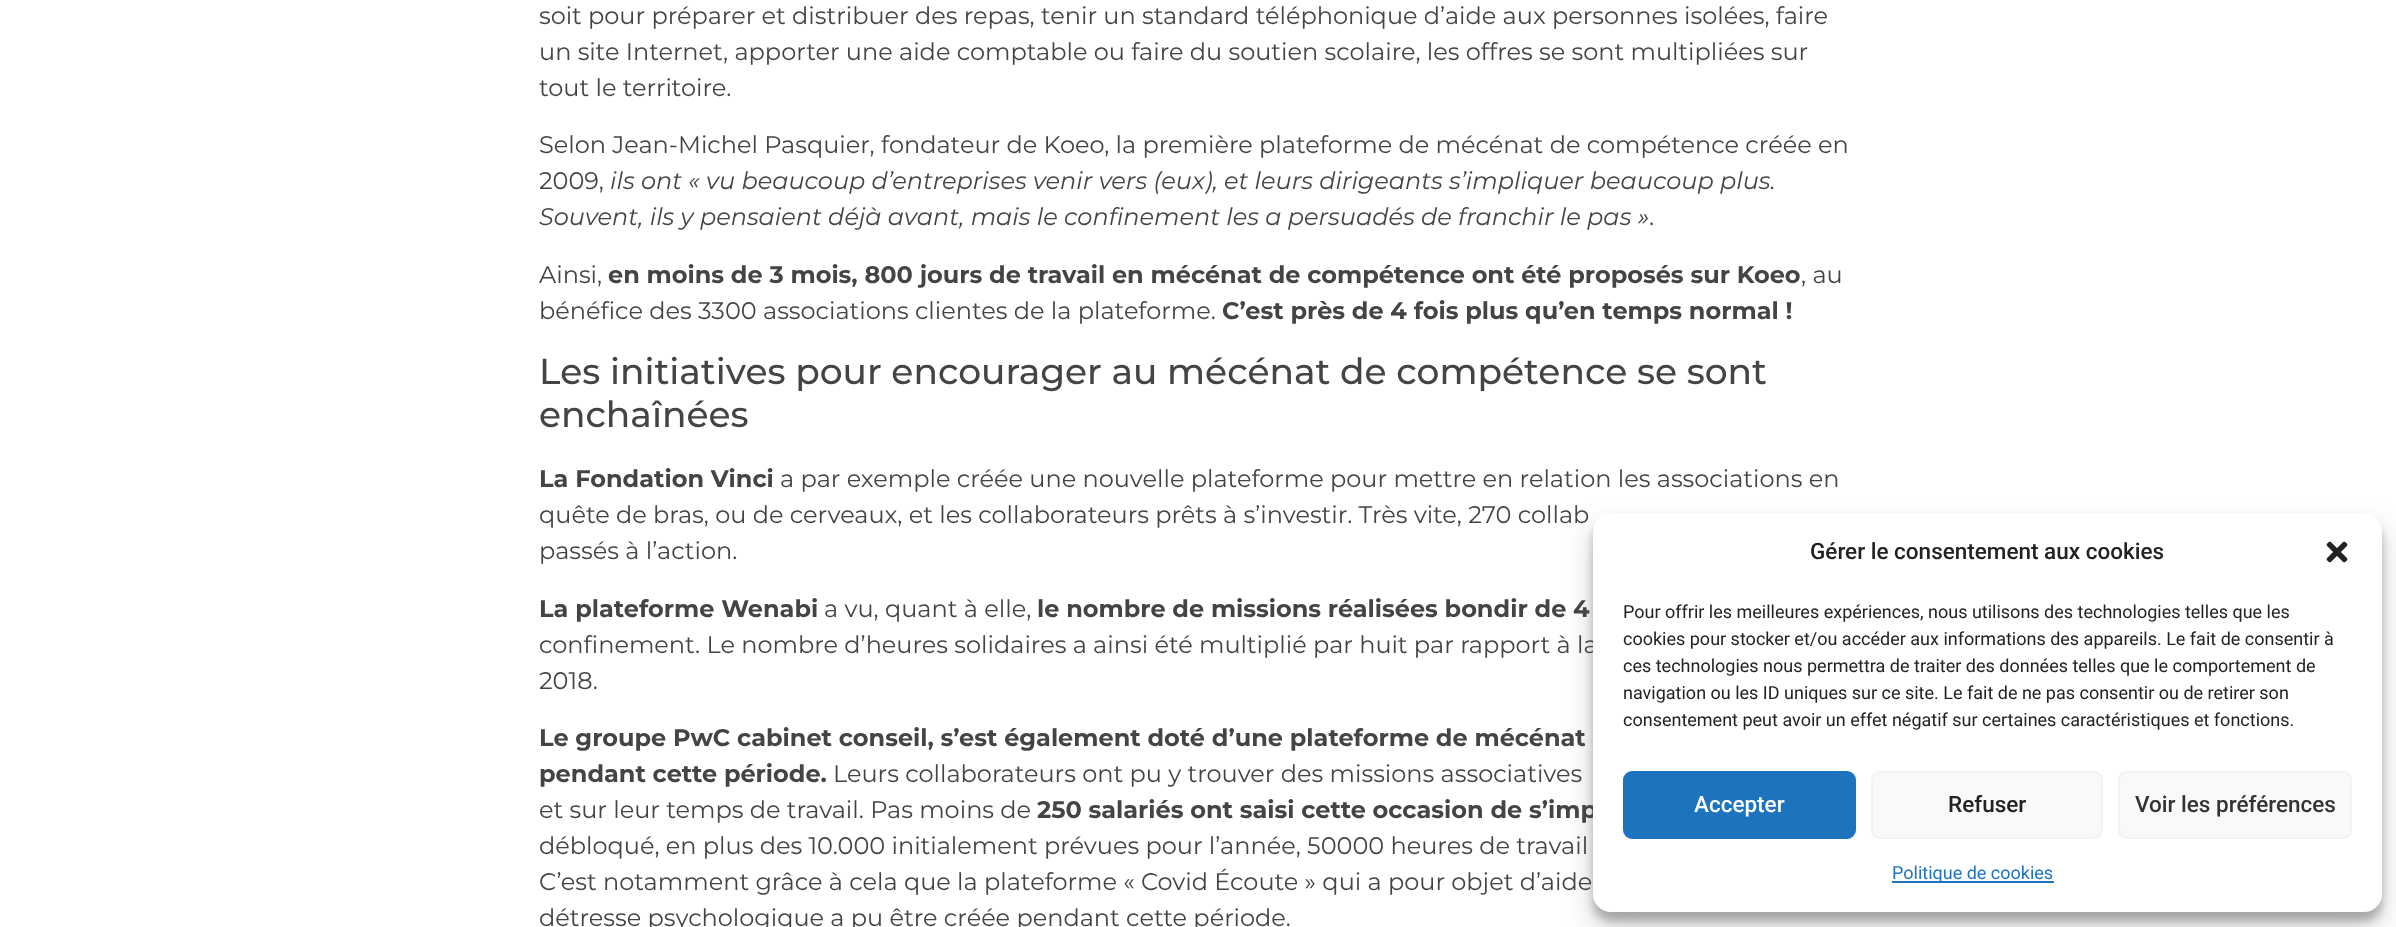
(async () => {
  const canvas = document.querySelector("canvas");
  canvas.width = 2396;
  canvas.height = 927;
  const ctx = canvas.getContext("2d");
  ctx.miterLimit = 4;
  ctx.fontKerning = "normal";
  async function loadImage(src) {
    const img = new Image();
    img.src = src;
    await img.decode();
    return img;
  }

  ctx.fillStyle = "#ffffff";
  ctx.fillRect(0, 0, 2396, 927);
  ctx.fillStyle = "rgba(0, 0, 0, 0.23)";
  ctx.filter = "blur(4.5px)";
  ctx.beginPath();
  ctx.roundRect(1593, 522, 789, 399, 18);
  ctx.fill();
  ctx.filter = "none";
  ctx.fillStyle = "rgba(0, 0, 0, 0.19)";
  ctx.filter = "blur(15px)";
  ctx.beginPath();
  ctx.roundRect(1593, 528, 789, 399, 18);
  ctx.fill();
  ctx.filter = "none";
  ctx.font = "24px Montserrat";
  ctx.fillStyle = "#444444";
  for (const [text, x, y] of [
    ["soit pour préparer et distribuer des repas, tenir un standard téléphonique d’aide aux personnes isolées, faire", 539, 24],
    ["un site Internet, apporter une aide comptable ou faire du soutien scolaire, les offres se sont multipliées sur", 539, 60],
    ["tout le territoire.", 539, 96],
    ["Selon Jean-Michel Pasquier, fondateur de Koeo, la première plateforme de mécénat de compétence créée en", 539, 153],
    ["2009,", 539, 189],
  ]) {
    ctx.fillText(text, x, y);
  }
  ctx.font = "italic 24px Montserrat";
  ctx.fillText("ils ont « vu beaucoup d’entreprises venir vers (eux), et leurs dirigeants s’impliquer beaucoup plus.", 610, 189);
  ctx.fillText("Souvent, ils y pensaient déjà avant, mais le confinement les a persuadés de franchir le pas »", 539, 225);
  ctx.font = "24px Montserrat";
  ctx.fillText(".", 1649, 225);
  ctx.fillText("Ainsi,", 539, 283);
  ctx.font = "bold 24px Montserrat";
  ctx.fillText("en moins de 3 mois, 800 jours de travail en mécénat de compétence ont été proposés sur Koeo", 608, 283);
  ctx.font = "24px Montserrat";
  ctx.fillText(", au", 1801, 283);
  ctx.fillText("bénéfice des 3300 associations clientes de la plateforme.", 539, 319);
  ctx.font = "bold 24px Montserrat";
  ctx.fillText("C’est près de 4 fois plus qu’en temps normal !", 1222, 319);
  ctx.font = "500 36px Montserrat";
  ctx.fillText("Les initiatives pour encourager au mécénat de compétence se sont", 539, 384);
  ctx.fillText("enchaînées", 539, 427);
  ctx.font = "bold 24px Montserrat";
  ctx.fillText("La Fondation Vinci", 539, 487);
  ctx.font = "24px Montserrat";
  for (const [text, x, y] of [
    ["a par exemple créée une nouvelle plateforme pour mettre en relation les associations en", 780, 487],
    ["quête de bras, ou de cerveaux, et les collaborateurs prêts à s’investir. Très vite, 270 collab", 539, 523],
    ["passés à l’action.", 539, 559],
  ]) {
    ctx.fillText(text, x, y);
  }
  ctx.font = "bold 24px Montserrat";
  ctx.fillText("La plateforme Wenabi", 539, 617);
  ctx.font = "24px Montserrat";
  ctx.fillText("a vu, quant à elle,", 824, 617);
  ctx.font = "bold 24px Montserrat";
  ctx.fillText("le nombre de missions réalisées bondir de 4", 1037, 617);
  ctx.font = "24px Montserrat";
  ctx.fillText("confinement. Le nombre d’heures solidaires a ainsi été multiplié par huit par rapport à la", 539, 653);
  ctx.fillText("2018.", 539, 689);
  ctx.font = "bold 24px Montserrat";
  ctx.fillText("Le groupe PwC cabinet conseil, s’est également doté d’une plateforme de mécénat", 539, 746);
  ctx.fillText("pendant cette période.", 539, 782);
  ctx.font = "24px Montserrat";
  ctx.fillText("Leurs collaborateurs ont pu y trouver des missions associatives", 833, 782);
  ctx.fillText("et sur leur temps de travail. Pas moins de", 539, 818);
  ctx.font = "bold 24px Montserrat";
  ctx.fillText("250 salariés ont saisi cette occasion de s’imp", 1037, 818);
  ctx.font = "24px Montserrat";
  for (const [text, x, y] of [
    ["débloqué, en plus des 10.000 initialement prévues pour l’année, 50000 heures de travail", 539, 854],
    ["C’est notamment grâce à cela que la plateforme « Covid Écoute » qui a pour objet d’aide", 539, 890],
    ["détresse psychologique a pu être créée pendant cette période.", 539, 926],
  ]) {
    ctx.fillText(text, x, y);
  }
  ctx.fillStyle = "#ffffff";
  ctx.beginPath();
  ctx.roundRect(1593, 513, 789, 399, 18);
  ctx.fill();
  ctx.font = "500 22.5px Roboto";
  ctx.fillStyle = "#222222";
  ctx.fillText("Gérer le consentement aux cookies", 1810, 559);
  ctx.drawImage(await loadImage("img/1.png"), 2326, 541, 22, 22);
  ctx.font = "18px Roboto";
  for (const [text, x, y] of [
    ["Pour offrir les meilleures expériences, nous utilisons des technologies telles que les", 1623, 618],
    ["cookies pour stocker et/ou accéder aux informations des appareils. Le fait de consentir à", 1623, 645],
    ["ces technologies nous permettra de traiter des données telles que le comportement de", 1623, 672],
    ["navigation ou les ID uniques sur ce site. Le fait de ne pas consentir ou de retirer son", 1623, 699],
    ["consentement peut avoir un effet négatif sur certaines caractéristiques et fonctions.", 1623, 726],
  ]) {
    ctx.fillText(text, x, y);
  }
  ctx.fillStyle = "#1e73be";
  ctx.beginPath();
  ctx.roundRect(1624, 772, 231, 66, 8);
  ctx.fill();
  ctx.strokeStyle = "#1e73be";
  ctx.lineWidth = 2;
  ctx.stroke();
  ctx.font = "500 22.5px Roboto";
  ctx.fillStyle = "#ffffff";
  ctx.fillText("Accepter", 1694, 812);
  ctx.fillStyle = "#f9f9f9";
  ctx.beginPath();
  ctx.roundRect(1872, 772, 230, 66, 8);
  ctx.fill();
  ctx.strokeStyle = "#f2f2f2";
  ctx.stroke();
  ctx.fillStyle = "#222222";
  ctx.fillText("Refuser", 1948, 812);
  ctx.fillStyle = "#f9f9f9";
  ctx.beginPath();
  ctx.roundRect(2119, 772, 232, 66, 8);
  ctx.fill();
  ctx.stroke();
  ctx.fillStyle = "#333333";
  ctx.fillText("Voir les préférences", 2135, 812);
  ctx.fillStyle = "#1e73be";
  ctx.fillRect(1892, 881, 162, 2);
  ctx.font = "18px Roboto";
  ctx.fillText("Politique de cookies", 1892, 879);
})();
